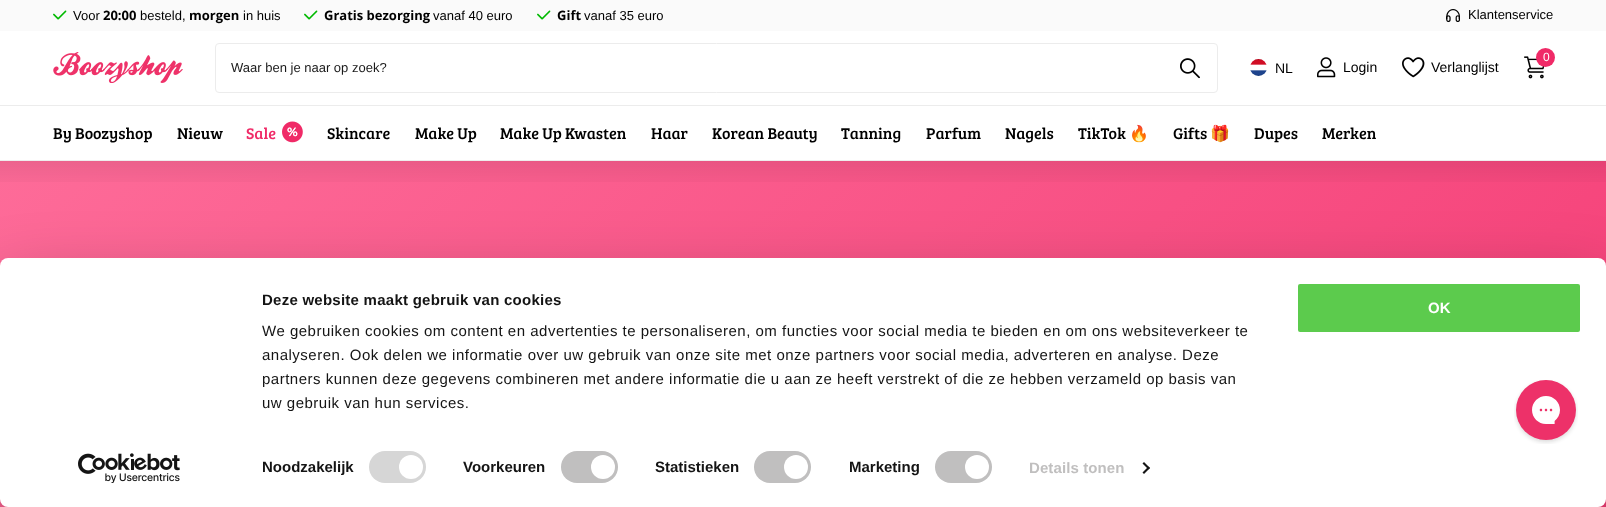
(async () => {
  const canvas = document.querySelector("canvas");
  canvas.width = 1606;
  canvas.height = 507;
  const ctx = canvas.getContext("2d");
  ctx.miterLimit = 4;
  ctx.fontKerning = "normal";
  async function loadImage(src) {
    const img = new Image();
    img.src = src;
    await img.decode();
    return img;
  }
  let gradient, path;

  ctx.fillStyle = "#ffffff";
  ctx.fillRect(0, 0, 1606, 507);
  gradient = ctx.createLinearGradient(1561, 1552, 45, 37);
  gradient.addColorStop(0.01, "#f02a67");
  gradient.addColorStop(1, "#fe6d9a");
  ctx.fillStyle = gradient;
  ctx.fillRect(0, 161, 1606, 346);
  ctx.save();
  ctx.beginPath();
  ctx.rect(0, 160, 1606, 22);
  ctx.clip();
  ctx.fillStyle = "rgba(0, 0, 0, 0.1)";
  ctx.filter = "blur(16px)";
  ctx.beginPath();
  ctx.rect(-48, 9, 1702, 160);
  ctx.fill();
  ctx.filter = "none";
  ctx.restore();
  ctx.fillStyle = "#fafafa";
  ctx.fillRect(0, 0, 1606, 31);
  ctx.drawImage(await loadImage("img/1.png"), 53, 10, 14, 10);
  ctx.drawImage(await loadImage("img/1.png"), 304, 10, 14, 10);
  ctx.drawImage(await loadImage("img/1.png"), 537, 10, 14, 10);
  ctx.drawImage(await loadImage("img/2.png"), 1446, 9, 14, 13);
  ctx.drawImage(await loadImage("img/3.png"), 53, 52, 130, 31);
  ctx.beginPath();
  ctx.roundRect(215.5, 43.5, 1002, 49, 3.5);
  ctx.strokeStyle = "#ececec";
  ctx.stroke();
  ctx.drawImage(await loadImage("img/4.png"), 1180, 58, 20, 21);
  ctx.drawImage(await loadImage("img/5.png"), 1524, 56, 21, 23);
  ctx.fillStyle = "#f02a67";
  ctx.beginPath();
  ctx.arc(1545.5, 57.5, 9.5, 0, Math.PI * 2);
  ctx.fill();
  ctx.drawImage(await loadImage("img/6.png"), 1250, 59, 17, 17);
  ctx.drawImage(await loadImage("img/7.png"), 1317, 57, 19, 21);
  ctx.drawImage(await loadImage("img/8.png"), 1402, 57, 23, 21);
  ctx.fillStyle = "#ececec";
  ctx.fillRect(0, 105, 1606, 1);
  ctx.drawImage(await loadImage("img/9.png"), 282, 121, 21, 22);
  ctx.drawImage(await loadImage("img/10.png"), 287, 127, 11, 10);
  ctx.fillStyle = "rgba(0, 0, 0, 0.3)";
  ctx.filter = "blur(35px)";
  ctx.beginPath();
  ctx.roundRect(0, 288, 1606, 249, 8);
  ctx.fill();
  ctx.filter = "none";
  ctx.fillStyle = "#ffffff";
  ctx.beginPath();
  ctx.roundRect(0, 258, 1606, 249, 8);
  ctx.fill();
  ctx.fillStyle = "#d6d6d6";
  ctx.beginPath();
  ctx.roundRect(369, 451, 57, 32, 16);
  ctx.fill();
  ctx.fillStyle = "#ffffff";
  ctx.beginPath();
  ctx.arc(411, 467, 12, 0, Math.PI * 2);
  ctx.fill();
  ctx.fillStyle = "#c0bfbf";
  ctx.beginPath();
  ctx.roundRect(561, 451, 57, 32, 16);
  ctx.fill();
  ctx.fillStyle = "#ffffff";
  ctx.beginPath();
  ctx.arc(603, 467, 12, 0, Math.PI * 2);
  ctx.fill();
  ctx.fillStyle = "#c0bfbf";
  ctx.beginPath();
  ctx.roundRect(754, 451, 57, 32, 16);
  ctx.fill();
  ctx.fillStyle = "#ffffff";
  ctx.beginPath();
  ctx.arc(796, 467, 12, 0, Math.PI * 2);
  ctx.fill();
  ctx.fillStyle = "#c0bfbf";
  ctx.beginPath();
  ctx.roundRect(935, 451, 57, 32, 16);
  ctx.fill();
  ctx.fillStyle = "#ffffff";
  ctx.beginPath();
  ctx.arc(977, 467, 12, 0, Math.PI * 2);
  ctx.fill();
  ctx.fillStyle = "#141414";
  path = new Path2D("M1144 462L1150 468L1148.5 469.5L1142.5 463.5Z");
  ctx.fill(path);
  path = new Path2D("M1148.5 466.5L1150 468L1144 474L1142.5 472.5Z");
  ctx.fill(path);
  ctx.fillStyle = "#5ccb4d";
  ctx.beginPath();
  ctx.roundRect(1297, 283, 284, 50, 3);
  ctx.fill();
  ctx.strokeStyle = "#ffffff";
  ctx.lineWidth = 2;
  ctx.stroke();
  ctx.drawImage(await loadImage("img/11.png"), 78, 453, 102, 30);
  ctx.drawImage(await loadImage("img/12.png"), 1514, 380, 64, 64);
  ctx.font = "13px Liberation Sans";
  ctx.fillStyle = "#000000";
  ctx.fillText("Voor", 73, 20);
  ctx.font = "bold 13px Open Sans";
  ctx.fillText("20:00", 103, 20);
  ctx.font = "13px Liberation Sans";
  ctx.fillText("besteld,", 140, 20);
  ctx.font = "bold 13px Open Sans";
  ctx.fillText("morgen", 189, 20);
  ctx.font = "13px Liberation Sans";
  ctx.fillText("in huis", 243, 20);
  ctx.font = "bold 13px Open Sans";
  ctx.fillText("Gratis bezorging", 324, 20);
  ctx.font = "13px Liberation Sans";
  ctx.fillText("vanaf 40 euro", 433, 20);
  ctx.font = "bold 13px Open Sans";
  ctx.fillText("Gift", 557, 20);
  ctx.font = "13px Liberation Sans";
  ctx.fillText("vanaf 35 euro", 584, 20);
  ctx.fillText("Klantenservice", 1468, 19);
  ctx.fillStyle = "#1a1a1a";
  ctx.fillText("Waar ben je naar op zoek?", 231, 72);
  ctx.font = "12px Liberation Sans";
  ctx.fillStyle = "#ffffff";
  ctx.fillText("0", 1543, 61);
  ctx.font = "14px Liberation Sans";
  ctx.fillStyle = "#000000";
  for (const [text, x, y] of [
    ["NL", 1275, 73],
    ["Login", 1343, 72],
    ["Verlanglijst", 1431, 72],
  ]) {
    ctx.fillText(text, x, y);
  }
  ctx.font = "16px Bree Serif";
  ctx.fillText("By Boozyshop", 53, 139);
  ctx.fillText("Nieuw", 177, 139);
  ctx.fillStyle = "#f02a67";
  ctx.fillText("Sale", 246, 139);
  ctx.fillStyle = "#000000";
  for (const [text, x, y] of [
    ["Skincare", 327, 139],
    ["Make Up", 415, 139],
    ["Make Up Kwasten", 500, 139],
    ["Haar", 651, 139],
    ["Korean Beauty", 712, 139],
    ["Tanning", 841, 139],
    ["Parfum", 926, 139],
    ["Nagels", 1005, 139],
    ["TikTok", 1078, 139],
  ]) {
    ctx.fillText(text, x, y);
  }
  ctx.font = "16px Noto Color Emoji";
  ctx.fillText("🔥", 1129, 139);
  ctx.font = "16px Bree Serif";
  ctx.fillText("Gifts", 1173, 139);
  ctx.font = "16px Noto Color Emoji";
  ctx.fillText("🎁", 1210, 139);
  ctx.font = "16px Bree Serif";
  ctx.fillText("Dupes", 1254, 139);
  ctx.fillText("Merken", 1322, 139);
  ctx.letterSpacing = "0.25px";
  ctx.font = "bold 15px Liberation Sans";
  ctx.fillStyle = "#141414";
  ctx.fillText("Deze website maakt gebruik van cookies", 262, 305);
  ctx.letterSpacing = "0.5px";
  ctx.font = "15px Liberation Sans";
  for (const [text, x, y] of [
    ["We gebruiken cookies om content en advertenties te personaliseren, om functies voor social media te bieden en om ons websiteverkeer te", 262, 336],
    ["analyseren. Ook delen we informatie over uw gebruik van onze site met onze partners voor social media, adverteren en analyse. Deze", 262, 360],
    ["partners kunnen deze gegevens combineren met andere informatie die u aan ze heeft verstrekt of die ze hebben verzameld op basis van", 262, 384],
    ["uw gebruik van hun services.", 262, 408],
  ]) {
    ctx.fillText(text, x, y);
  }
  ctx.letterSpacing = "0px";
  ctx.font = "bold 15px Liberation Sans";
  for (const [text, x, y] of [
    ["Noodzakelijk", 262, 472],
    ["Voorkeuren", 463, 472],
    ["Statistieken", 655, 472],
    ["Marketing", 849, 472],
  ]) {
    ctx.fillText(text, x, y);
  }
  ctx.letterSpacing = "0.1px";
  ctx.fillStyle = "#c0bfbf";
  ctx.fillText("Details tonen", 1029, 473);
  ctx.letterSpacing = "0px";
  ctx.fillStyle = "#ffffff";
  ctx.fillText("OK", 1428, 313);
})();
